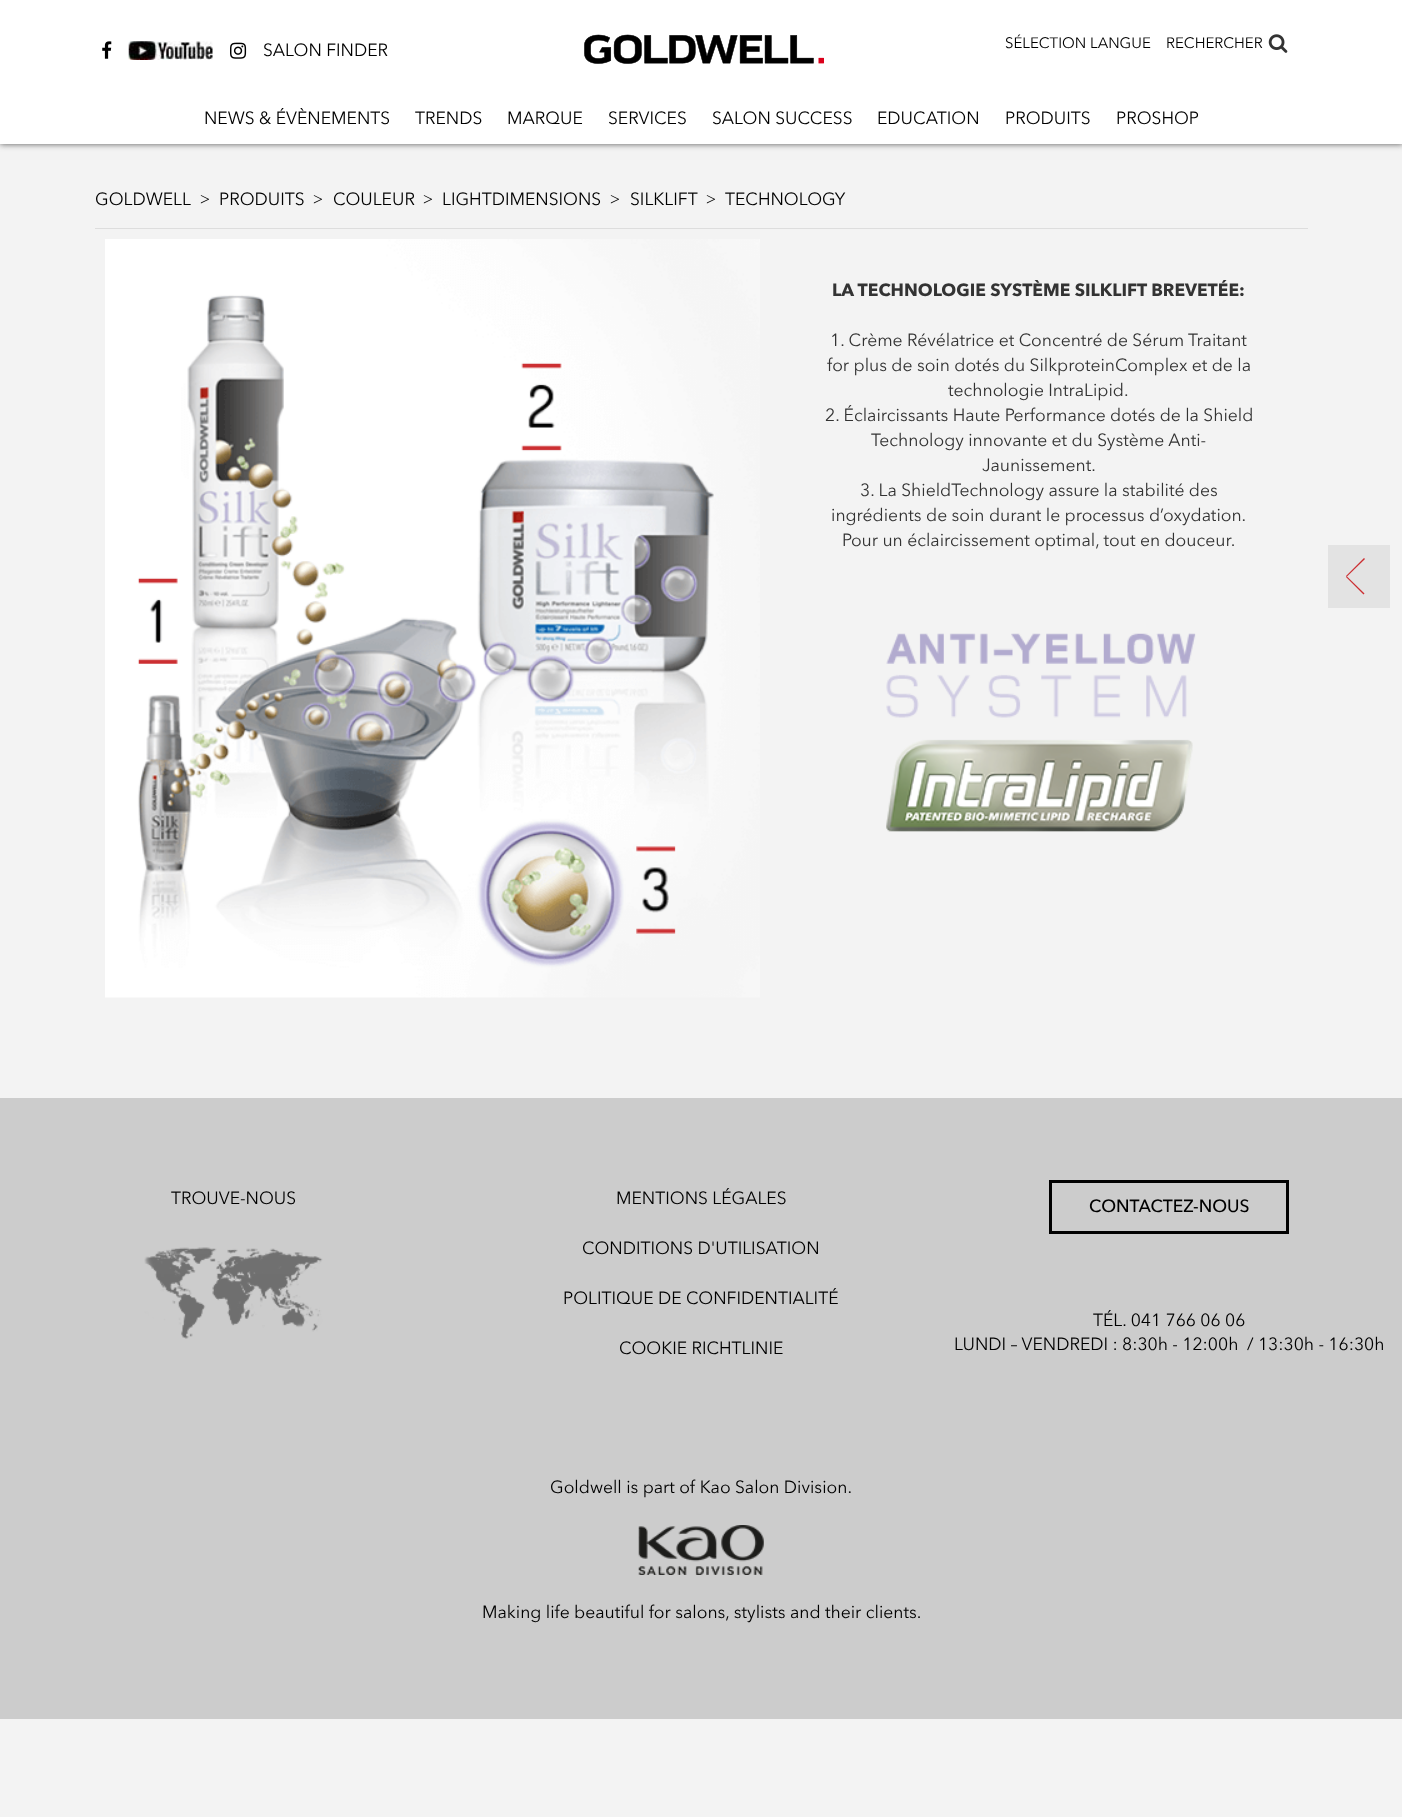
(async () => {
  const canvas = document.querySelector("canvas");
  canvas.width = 1402;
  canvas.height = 1817;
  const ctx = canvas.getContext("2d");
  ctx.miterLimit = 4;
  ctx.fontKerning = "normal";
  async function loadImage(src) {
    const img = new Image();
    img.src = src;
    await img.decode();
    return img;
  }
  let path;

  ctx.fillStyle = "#f3f3f3";
  ctx.fillRect(0, 0, 1402, 1817);
  ctx.fillStyle = "#555555";
  ctx.filter = "blur(3px)";
  ctx.beginPath();
  ctx.rect(0, 0, 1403, 144);
  ctx.fill();
  ctx.filter = "none";
  ctx.fillStyle = "#ffffff";
  ctx.fillRect(0, 0, 1402, 144);
  ctx.drawImage(await loadImage("img/1.png"), 102, 41, 10, 18);
  ctx.drawImage(await loadImage("img/2.png"), 128, 41, 85, 19);
  ctx.drawImage(await loadImage("img/3.png"), 230, 42, 17, 17);
  ctx.drawImage(await loadImage("img/4.png"), 584, 34, 240, 30);
  ctx.drawImage(await loadImage("img/5.png"), 1268, 34, 20, 19);
  ctx.drawImage(await loadImage("img/6.png"), 105, 239, 655, 759);
  ctx.fillStyle = "#dddddd";
  ctx.fillRect(95, 228, 1213, 1);
  ctx.drawImage(await loadImage("img/7.png"), 886, 633, 310, 199);
  ctx.fillStyle = "#cccccc";
  ctx.fillRect(0, 1098, 1402, 621);
  ctx.fillStyle = "#e3e3e3";
  ctx.fillRect(1328, 545, 62, 63);
  ctx.fillStyle = "#cc2d30";
  path = new Path2D("M1346.5 576L1364.5 593.5L1363.5 594.5L1346 577Z");
  ctx.fill(path);
  path = new Path2D("M1346 576L1364 558L1365 559L1347 576.5Z");
  ctx.fill(path);
  ctx.drawImage(await loadImage("img/8.png"), 144, 1247, 179, 92);
  ctx.strokeStyle = "#000000";
  ctx.lineWidth = 3;
  ctx.strokeRect(1050.5, 1181.5, 237, 51);
  ctx.drawImage(await loadImage("img/9.png"), 638, 1525, 126, 50);
  ctx.font = "17.5px Avenir";
  ctx.fillStyle = "#000000";
  ctx.fillText("SALON FINDER", 263, 56);
  ctx.font = "15px Avenir";
  ctx.fillText("SÉLECTION LANGUE", 1005, 48);
  ctx.font = "17.5px Avenir";
  for (const [text, x, y] of [
    ["NEWS & ÉVÈNEMENTS", 204, 124],
    ["TRENDS", 415, 124],
    ["MARQUE", 507, 124],
    ["SERVICES", 608, 124],
    ["SALON SUCCESS", 712, 124],
    ["EDUCATION", 877, 124],
    ["PRODUITS", 1005, 124],
    ["PROSHOP", 1116, 124],
  ]) {
    ctx.fillText(text, x, y);
  }
  ctx.font = "15px Avenir";
  ctx.fillText("RECHERCHER", 1166, 48);
  ctx.font = "17.5px Avenir";
  ctx.fillText("GOLDWELL", 95, 205);
  ctx.font = "17.5px Liberation Serif";
  ctx.fillText(">", 200, 205);
  ctx.font = "17.5px Avenir";
  ctx.fillText("PRODUITS", 219, 205);
  ctx.font = "17.5px Liberation Serif";
  ctx.fillText(">", 313, 205);
  ctx.font = "17.5px Avenir";
  ctx.fillText("COULEUR", 333, 205);
  ctx.font = "17.5px Liberation Serif";
  ctx.fillText(">", 423, 205);
  ctx.font = "17.5px Avenir";
  ctx.fillText("LIGHTDIMENSIONS", 442, 205);
  ctx.font = "17.5px Liberation Serif";
  ctx.fillText(">", 610, 205);
  ctx.font = "17.5px Avenir";
  ctx.fillText("SILKLIFT", 630, 205);
  ctx.font = "17.5px Liberation Serif";
  ctx.fillText(">", 706, 205);
  ctx.font = "17.5px Avenir";
  ctx.fillText("TECHNOLOGY", 725, 205);
  ctx.font = "bold 17.5px Avenir";
  ctx.fillStyle = "#333333";
  ctx.fillText("LA TECHNOLOGIE SYSTÈME SILKLIFT BREVETÉE:", 832, 296);
  ctx.font = "17.5px Avenir";
  for (const [text, x, y] of [
    ["1. Crème Révélatrice et Concentré de Sérum Traitant", 830, 346],
    ["for plus de soin dotés du SilkproteinComplex et de la", 827, 371],
    ["technologie IntraLipid.", 948, 396],
    ["2. Éclaircissants Haute Performance dotés de la Shield", 825, 421],
    ["Technology innovante et du Système Anti-", 871, 446],
    ["Jaunissement.", 982, 471],
    ["3. La ShieldTechnology assure la stabilité des", 860, 496],
    ["ingrédients de soin durant le processus d’oxydation.", 831, 521],
    ["Pour un éclaircissement optimal, tout en douceur.", 842, 546],
  ]) {
    ctx.fillText(text, x, y);
  }
  ctx.fillStyle = "#000000";
  for (const [text, x, y] of [
    ["TROUVE-NOUS", 171, 1204],
    ["MENTIONS LÉGALES", 616, 1204],
    ["CONDITIONS D'UTILISATION", 582, 1254],
    ["POLITIQUE DE CONFIDENTIALITÉ", 563, 1304],
    ["COOKIE RICHTLINIE", 619, 1354],
  ]) {
    ctx.fillText(text, x, y);
  }
  ctx.font = "500 17.5px Avenir";
  ctx.fillText("CONTACTEZ-NOUS", 1089, 1212);
  ctx.font = "17.5px Avenir";
  for (const [text, x, y] of [
    ["TÉL. 041 766 06 06", 1093, 1326],
    ["LUNDI – VENDREDI : 8:30h - 12:00h  / 13:30h - 16:30h", 954, 1350],
    ["Goldwell is part of Kao Salon Division.", 550, 1493],
    ["Making life beautiful for salons, stylists and their clients.", 482, 1618],
  ]) {
    ctx.fillText(text, x, y);
  }
})();
